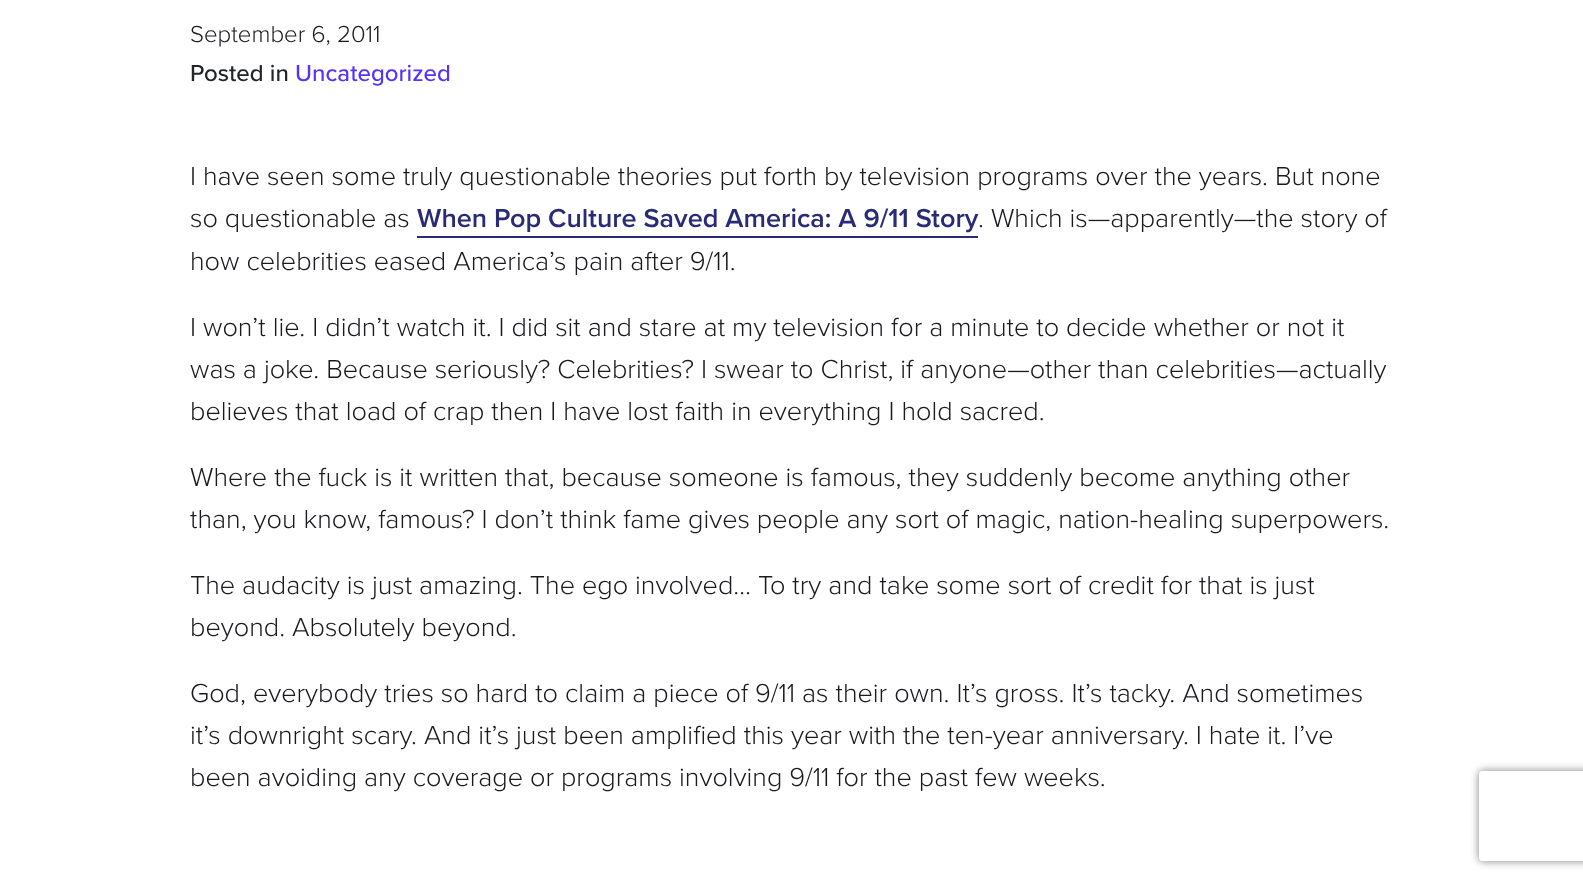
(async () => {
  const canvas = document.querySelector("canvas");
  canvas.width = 1583;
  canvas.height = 881;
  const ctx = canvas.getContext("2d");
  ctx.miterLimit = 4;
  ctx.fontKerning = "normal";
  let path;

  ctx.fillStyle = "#ffffff";
  ctx.fillRect(0, 0, 1583, 881);
  ctx.fillStyle = "#2a2b77";
  ctx.fillRect(417, 236, 561, 2);
  ctx.save();
  path = new Path2D("M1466 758H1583V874H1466ZM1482 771H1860C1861.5 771 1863 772.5 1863 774V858C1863 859.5 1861.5 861 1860 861H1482C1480.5 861 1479 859.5 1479 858V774C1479 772.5 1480.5 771 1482 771Z");
  ctx.clip(path, "evenodd");
  ctx.fillStyle = "#808080";
  ctx.filter = "blur(4px)";
  ctx.beginPath();
  ctx.roundRect(1479, 771, 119, 90, 3);
  ctx.fill();
  ctx.filter = "none";
  ctx.restore();
  ctx.font = "300 24px Proxima Nova";
  ctx.fillStyle = "#19191e";
  ctx.fillText("September 6, 2011", 190, 42);
  ctx.font = "500 24px Proxima Nova";
  ctx.fillStyle = "#212529";
  ctx.fillText("Posted in", 190, 81);
  ctx.fillStyle = "#5533ff";
  ctx.fillText("Uncategorized", 295, 81);
  ctx.font = "300 27px Proxima Nova";
  ctx.fillStyle = "#19191e";
  ctx.fillText("I have seen some truly questionable theories put forth by television programs over the years. But none", 190, 185);
  ctx.fillText("so questionable as", 190, 227);
  ctx.font = "600 27px Proxima Nova";
  ctx.fillStyle = "#2a2b77";
  ctx.fillText("When Pop Culture Saved America: A 9/11 Story", 417, 227);
  ctx.font = "300 27px Proxima Nova";
  ctx.fillStyle = "#19191e";
  for (const [text, x, y] of [
    [". Which is—apparently—the story of", 978, 227],
    ["how celebrities eased America’s pain after 9/11.", 190, 270],
    ["I won’t lie. I didn’t watch it. I did sit and stare at my television for a minute to decide whether or not it", 190, 336],
    ["was a joke. Because seriously? Celebrities? I swear to Christ, if anyone—other than celebrities—actually", 190, 378],
    ["believes that load of crap then I have lost faith in everything I hold sacred.", 190, 420],
    ["Where the fuck is it written that, because someone is famous, they suddenly become anything other", 190, 486],
    ["than, you know, famous? I don’t think fame gives people any sort of magic, nation-healing superpowers.", 190, 528],
    ["The audacity is just amazing. The ego involved… To try and take some sort of credit for that is just", 190, 594],
    ["beyond. Absolutely beyond.", 190, 636],
    ["God, everybody tries so hard to claim a piece of 9/11 as their own. It’s gross. It’s tacky. And sometimes", 190, 702],
    ["it’s downright scary. And it’s just been amplified this year with the ten-year anniversary. I hate it. I’ve", 190, 744],
    ["been avoiding any coverage or programs involving 9/11 for the past few weeks.", 190, 786],
  ]) {
    ctx.fillText(text, x, y);
  }
})();
